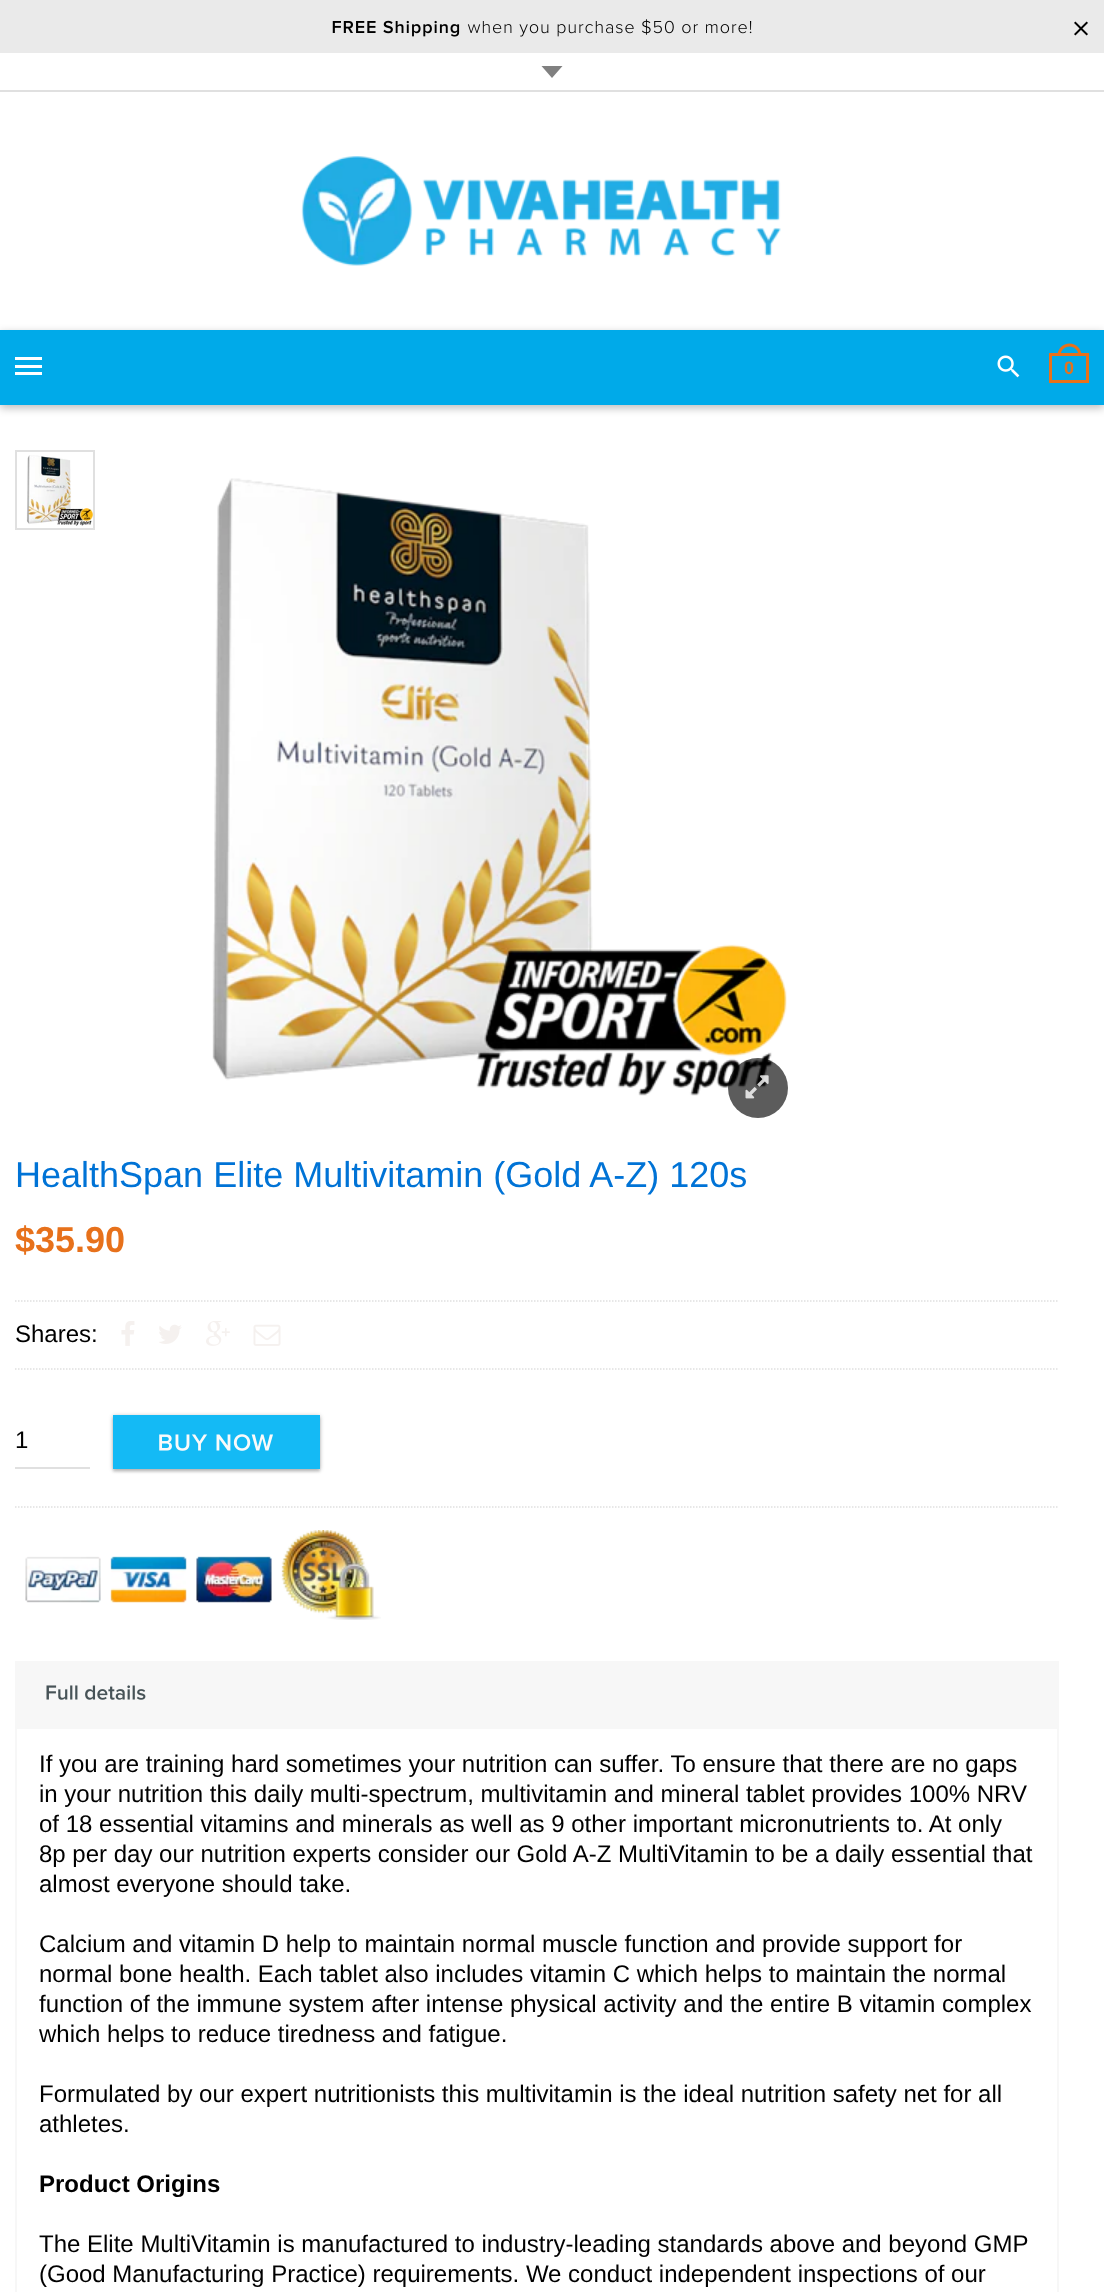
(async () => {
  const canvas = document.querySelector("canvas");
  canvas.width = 1104;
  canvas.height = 2292;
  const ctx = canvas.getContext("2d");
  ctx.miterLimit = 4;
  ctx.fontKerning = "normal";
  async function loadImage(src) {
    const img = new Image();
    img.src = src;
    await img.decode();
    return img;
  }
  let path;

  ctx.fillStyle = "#ffffff";
  ctx.fillRect(0, 0, 1104, 2292);
  ctx.fillStyle = "#eaeaea";
  ctx.fillRect(0, 0, 1104, 53);
  ctx.drawImage(await loadImage("img/1.png"), 332, 20, 128, 17);
  ctx.drawImage(await loadImage("img/2.png"), 467, 19, 285, 18);
  ctx.drawImage(await loadImage("img/3.png"), 1074, 21, 14, 15);
  ctx.fillStyle = "#e0e0e0";
  ctx.fillRect(0, 90, 1104, 2);
  ctx.fillStyle = "#808080";
  path = new Path2D("M541.5 66H562.5L552 78Z");
  ctx.fill(path);
  ctx.drawImage(await loadImage("img/4.png"), 301, 156, 480, 110);
  ctx.fillStyle = "rgba(0, 0, 0, 0.26)";
  ctx.filter = "blur(4px)";
  ctx.beginPath();
  ctx.rect(0, 333, 1104, 75);
  ctx.fill();
  ctx.filter = "none";
  for (const [x, y, w, h, color] of [
    [0, 330, 1104, 75, "#00aae9"],
    [15, 357, 27, 3, "#ffffff"],
    [15, 365, 27, 3, "#ffffff"],
    [15, 372, 27, 3, "#ffffff"],
  ]) {
    ctx.fillStyle = color;
    ctx.fillRect(x, y, w, h);
  }
  ctx.drawImage(await loadImage("img/5.png"), 997, 355, 23, 23);
  ctx.fillStyle = "#e7711b";
  path = new Path2D("M1069.5 343.5C1076 343.5 1081.5 349 1081.5 355.5H1057.5C1057.5 349 1063 343.5 1069.5 343.5ZM1069.5 346.5C1074.5 346.5 1078.5 350.5 1078.5 355.5H1060.5C1060.5 350.5 1064.5 346.5 1069.5 346.5Z");
  ctx.fill(path, "evenodd");
  ctx.strokeStyle = "#e7711b";
  ctx.lineWidth = 3;
  ctx.strokeRect(1050.5, 354.5, 37, 27);
  ctx.strokeStyle = "#e0e0e0";
  ctx.lineWidth = 2;
  ctx.strokeRect(16, 451, 78, 78);
  ctx.drawImage(await loadImage("img/6.png"), 26, 455, 67, 71);
  ctx.drawImage(await loadImage("img/7.png"), 212, 478, 575, 618);
  ctx.fillStyle = "rgba(0, 0, 0, 0.64)";
  ctx.beginPath();
  ctx.arc(758, 1088, 30, 0, Math.PI * 2);
  ctx.fill();
  ctx.drawImage(await loadImage("img/8.png"), 745, 1075, 24, 24);
  path = new Path2D("M15 1301H1059");
  ctx.lineWidth = 1.5;
  ctx.setLineDash([1.5, 1.5]);
  ctx.stroke(path);
  path = new Path2D("M15 1369H1059");
  ctx.stroke(path);
  ctx.drawImage(await loadImage("img/9.png"), 121, 1321, 14, 25);
  ctx.drawImage(await loadImage("img/10.png"), 159, 1324, 23, 20);
  ctx.drawImage(await loadImage("img/11.png"), 206, 1321, 24, 25);
  ctx.drawImage(await loadImage("img/12.png"), 253, 1324, 28, 22);
  ctx.fillStyle = "#e0e0e0";
  ctx.fillRect(15, 1467, 75, 2);
  ctx.fillStyle = "rgba(0, 0, 0, 0.3)";
  ctx.filter = "blur(2px)";
  ctx.beginPath();
  ctx.rect(113, 1416, 207, 54);
  ctx.fill();
  ctx.filter = "none";
  ctx.fillStyle = "rgba(0, 0, 0, 0.1)";
  ctx.filter = "blur(1px)";
  ctx.beginPath();
  ctx.rect(113, 1418, 207, 54);
  ctx.fill();
  ctx.filter = "none";
  ctx.fillStyle = "#14baf5";
  ctx.fillRect(113, 1415, 207, 54);
  ctx.drawImage(await loadImage("img/13.png"), 159, 1434, 114, 17);
  path = new Path2D("M15 1507H1059");
  ctx.stroke(path);
  ctx.drawImage(await loadImage("img/14.png"), 25, 1530, 356, 90);
  ctx.fillStyle = "#f7f7f7";
  ctx.fillRect(15, 1661, 1044, 66);
  ctx.drawImage(await loadImage("img/15.png"), 46, 1685, 100, 15);
  ctx.strokeStyle = "#f7f7f7";
  ctx.lineWidth = 2;
  ctx.setLineDash([]);
  ctx.strokeRect(16, 1728, 1042, 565);
  ctx.font = "bold 18px Liberation Sans";
  ctx.fillStyle = "#e7711b";
  ctx.fillText("0", 1064, 374);
  ctx.font = "36px Liberation Sans";
  ctx.fillStyle = "#0073d6";
  ctx.fillText("HealthSpan Elite Multivitamin (Gold A-Z) 120s", 15, 1187);
  ctx.font = "bold 36px Liberation Sans";
  ctx.fillStyle = "#e7711b";
  ctx.fillText("$35.90", 15, 1252);
  ctx.font = "24px Liberation Sans";
  ctx.fillStyle = "#000000";
  for (const [text, x, y] of [
    ["Shares:", 15, 1342],
    ["1", 15, 1448],
    ["If you are training hard sometimes your nutrition can suffer. To ensure that there are no gaps", 39, 1772],
    ["in your nutrition this daily multi-spectrum, multivitamin and mineral tablet provides 100% NRV", 39, 1802],
    ["of 18 essential vitamins and minerals as well as 9 other important micronutrients to. At only", 39, 1832],
    ["8p per day our nutrition experts consider our Gold A-Z MultiVitamin to be a daily essential that", 39, 1862],
    ["almost everyone should take.", 39, 1892],
    ["Calcium and vitamin D help to maintain normal muscle function and provide support for", 39, 1952],
    ["normal bone health. Each tablet also includes vitamin C which helps to maintain the normal", 39, 1982],
    ["function of the immune system after intense physical activity and the entire B vitamin complex", 39, 2012],
    ["which helps to reduce tiredness and fatigue.", 39, 2042],
    ["Formulated by our expert nutritionists this multivitamin is the ideal nutrition safety net for all", 39, 2102],
    ["athletes.", 39, 2132],
  ]) {
    ctx.fillText(text, x, y);
  }
  ctx.font = "bold 24px Liberation Sans";
  ctx.fillText("Product Origins", 39, 2192);
  ctx.font = "24px Liberation Sans";
  ctx.fillText("The Elite MultiVitamin is manufactured to industry-leading standards above and beyond GMP", 39, 2252);
  ctx.fillText("(Good Manufacturing Practice) requirements. We conduct independent inspections of our", 39, 2282);
})();
